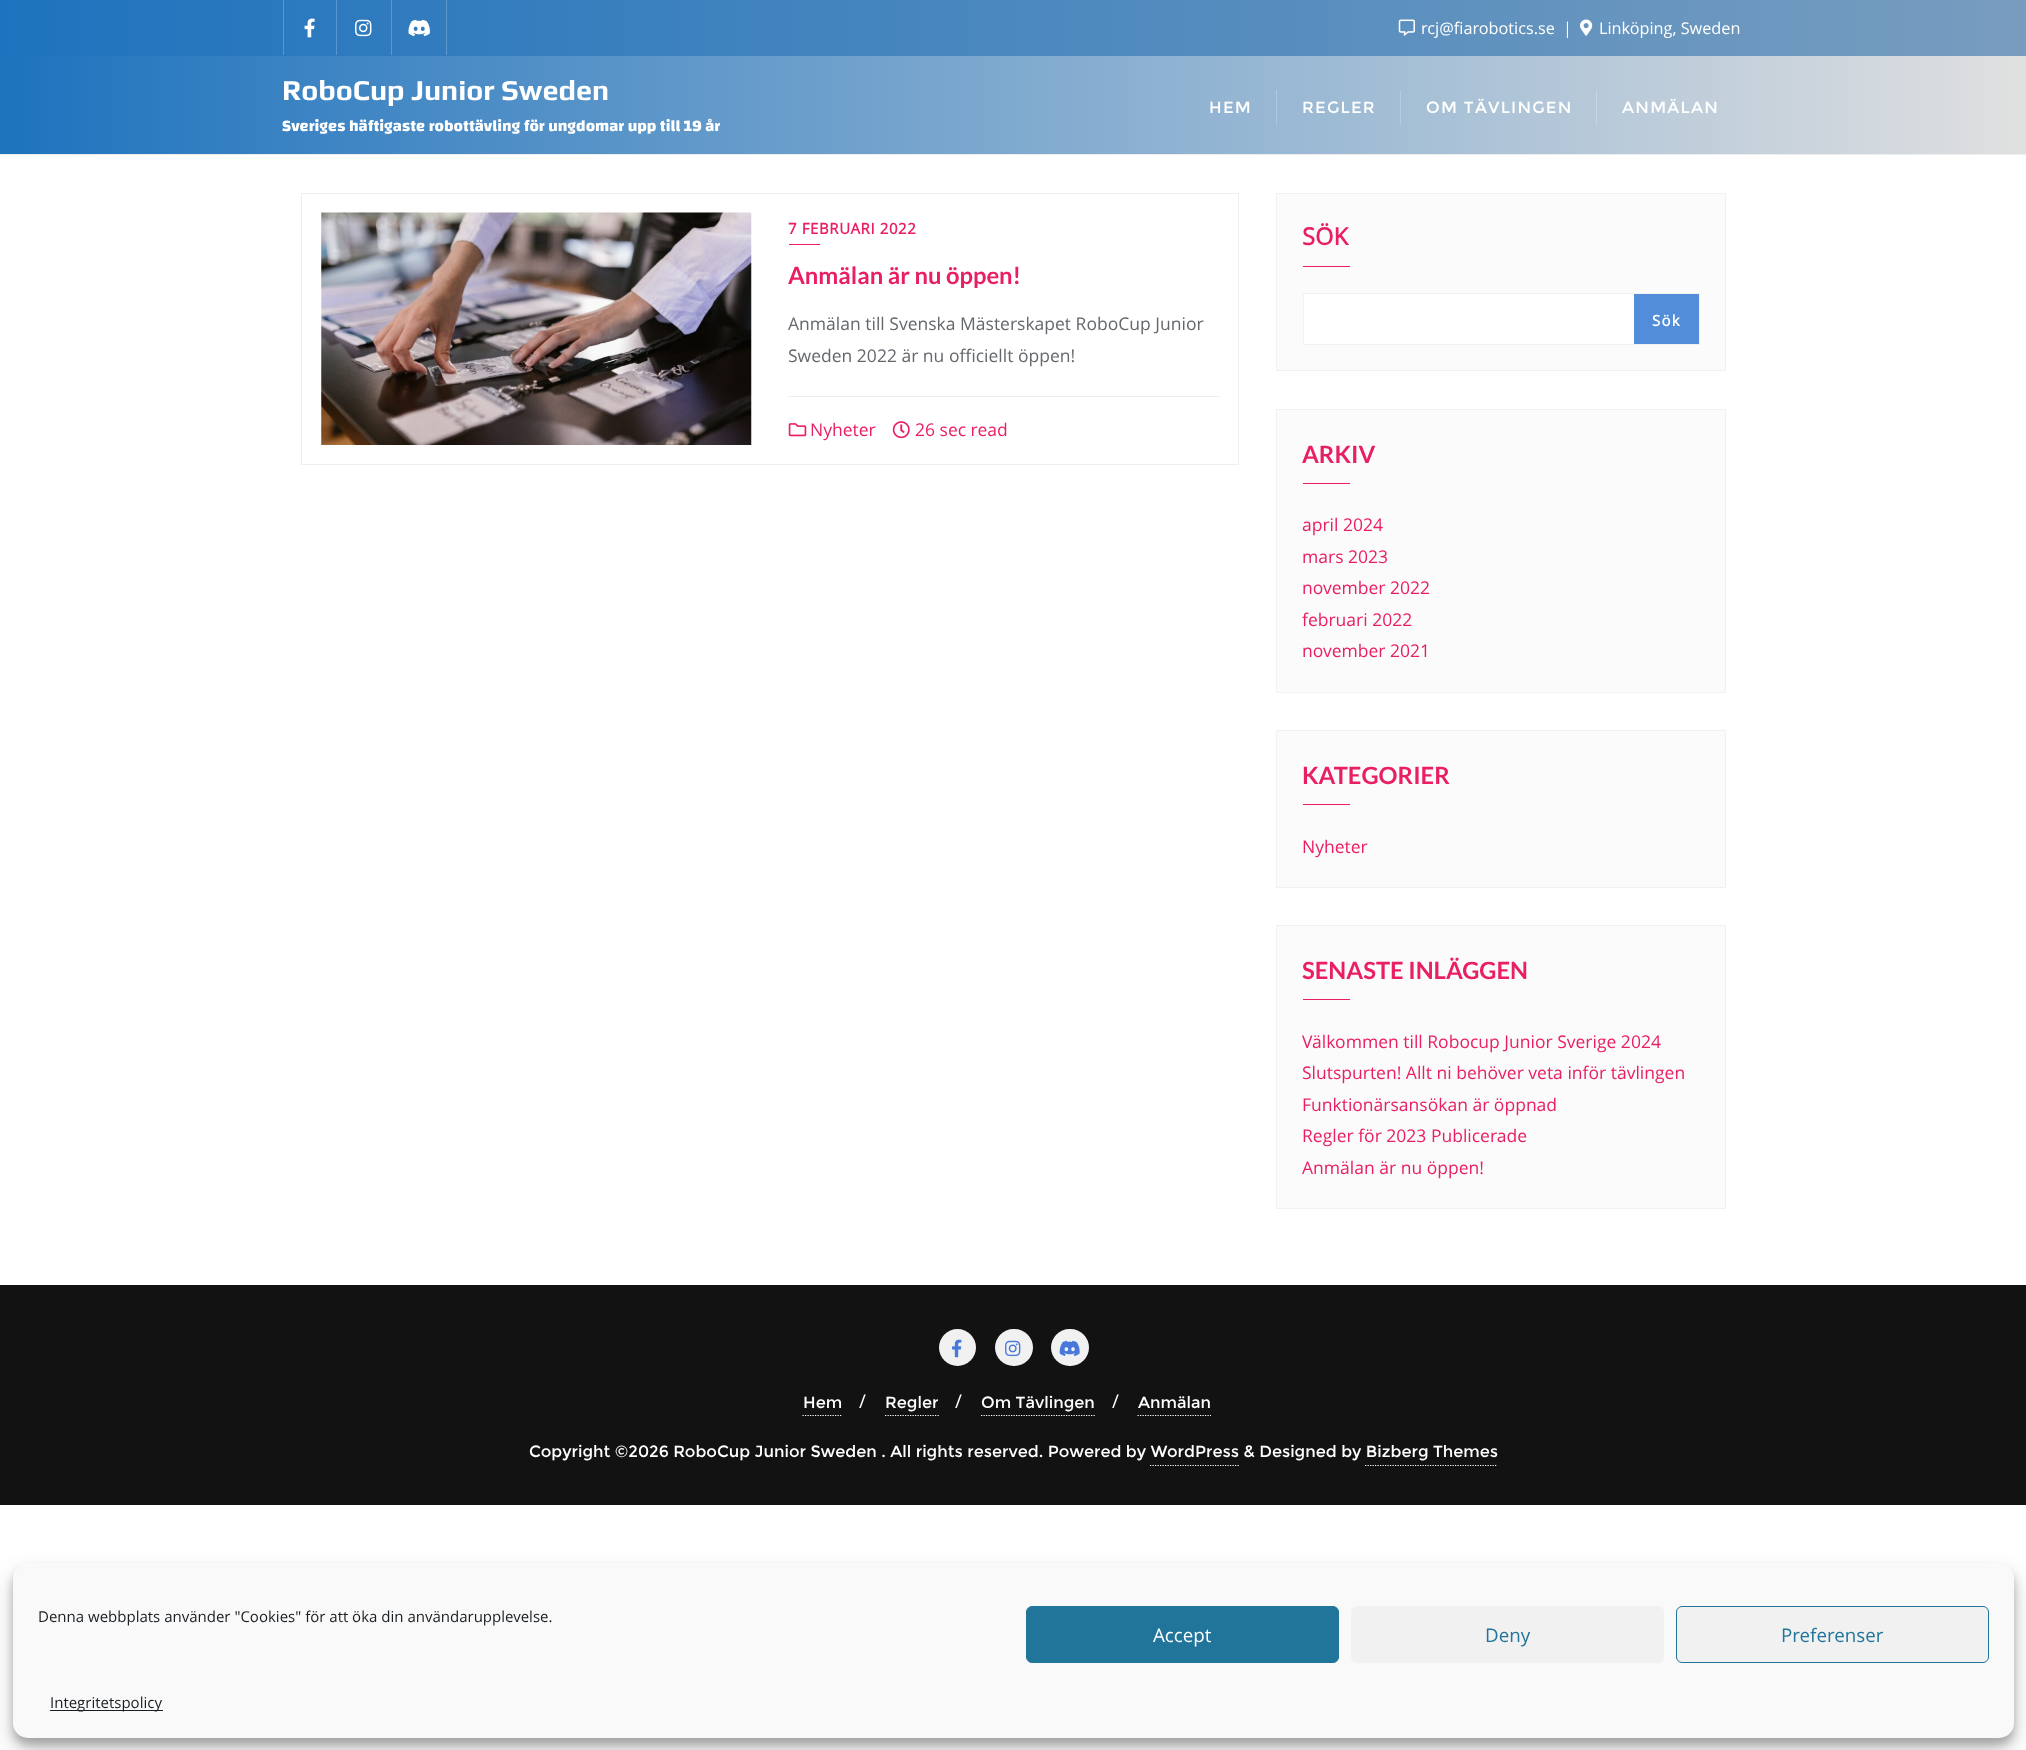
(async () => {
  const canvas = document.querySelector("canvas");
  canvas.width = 2026;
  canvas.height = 1750;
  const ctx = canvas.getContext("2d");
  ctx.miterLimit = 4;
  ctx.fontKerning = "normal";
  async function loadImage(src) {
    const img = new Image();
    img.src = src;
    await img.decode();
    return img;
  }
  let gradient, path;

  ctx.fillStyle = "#ffffff";
  ctx.fillRect(0, 0, 2026, 1750);
  ctx.fillStyle = "#eeeeee";
  ctx.fillRect(0, 154, 2026, 1);
  gradient = ctx.createLinearGradient(0, 28, 2026, 27);
  gradient.addColorStop(0, "#1e73be");
  gradient.addColorStop(1, "#789dbf");
  ctx.fillStyle = gradient;
  ctx.fillRect(0, 0, 2026, 56);
  ctx.fillStyle = "#5b97cc";
  ctx.fillRect(336, 0, 1, 55);
  ctx.fillStyle = "#5a96cc";
  ctx.fillRect(283, 0, 1, 55);
  ctx.drawImage(await loadImage("img/1.png"), 304, 18, 11, 20);
  ctx.fillStyle = "#5d98cc";
  ctx.fillRect(391, 0, 1, 55);
  ctx.drawImage(await loadImage("img/2.png"), 355, 19, 17, 18);
  ctx.fillStyle = "#5f99cc";
  ctx.fillRect(446, 0, 1, 55);
  ctx.drawImage(await loadImage("img/3.png"), 408, 19, 22, 18);
  ctx.drawImage(await loadImage("img/4.png"), 1398, 19, 17, 17);
  ctx.drawImage(await loadImage("img/5.png"), 1580, 19, 13, 17);
  gradient = ctx.createLinearGradient(0, 105, 2026, 105);
  gradient.addColorStop(0, "#1e73be");
  gradient.addColorStop(1, "#e0e0e0");
  ctx.fillStyle = gradient;
  ctx.fillRect(0, 56, 2026, 98);
  for (const [x, y, w, h, color] of [
    [1276, 90, 1, 35, "#afc8dd"],
    [1400, 90, 1, 35, "#b8ccdf"],
    [1596, 90, 1, 35, "#c7d5e1"],
  ]) {
    ctx.fillStyle = color;
    ctx.fillRect(x, y, w, h);
  }
  ctx.strokeStyle = "#eeeeee";
  ctx.strokeRect(301.5, 193.5, 937, 271);
  ctx.drawImage(await loadImage("img/6.png"), 321, 212, 431, 233);
  ctx.fillStyle = "#e91e63";
  ctx.fillRect(789, 244, 31, 1);
  ctx.fillStyle = "#eeeeee";
  ctx.fillRect(789, 396, 430, 1);
  ctx.drawImage(await loadImage("img/7.png"), 788, 423, 19, 14);
  ctx.drawImage(await loadImage("img/8.png"), 892, 421, 18, 18);
  ctx.fillStyle = "#fbfbfb";
  ctx.beginPath();
  ctx.rect(1276.5, 193.5, 449, 177);
  ctx.fill();
  ctx.strokeStyle = "#f1f1f1";
  ctx.stroke();
  ctx.fillStyle = "#e91e63";
  ctx.fillRect(1303, 266, 47, 1);
  ctx.fillStyle = "#ffffff";
  ctx.fillRect(1304, 294, 330, 50);
  ctx.strokeRect(1303.5, 293.5, 396, 51);
  ctx.fillStyle = "#528dd9";
  ctx.fillRect(1634, 294, 65, 50);
  ctx.fillStyle = "#fbfbfb";
  ctx.beginPath();
  ctx.rect(1276.5, 409.5, 449, 283);
  ctx.fill();
  ctx.stroke();
  ctx.fillStyle = "#e91e63";
  ctx.fillRect(1303, 483, 47, 1);
  ctx.fillStyle = "#fbfbfb";
  ctx.beginPath();
  ctx.rect(1276.5, 730.5, 449, 157);
  ctx.fill();
  ctx.stroke();
  ctx.fillStyle = "#e91e63";
  ctx.fillRect(1303, 804, 47, 1);
  ctx.fillStyle = "#fbfbfb";
  ctx.beginPath();
  ctx.rect(1276.5, 925.5, 449, 283);
  ctx.fill();
  ctx.stroke();
  ctx.fillStyle = "#e91e63";
  ctx.fillRect(1303, 999, 47, 1);
  ctx.fillStyle = "#121212";
  ctx.fillRect(0, 1285, 2026, 220);
  ctx.fillStyle = "#f1f1f1";
  ctx.beginPath();
  ctx.arc(957.5, 1347.5, 18.5, 0, Math.PI * 2);
  ctx.fill();
  ctx.drawImage(await loadImage("img/9.png"), 952, 1339, 10, 19);
  ctx.beginPath();
  ctx.roundRect(995, 1329, 38, 37, 18.5);
  ctx.fill();
  ctx.drawImage(await loadImage("img/10.png"), 1005, 1340, 16, 17);
  ctx.beginPath();
  ctx.roundRect(1051, 1329, 38, 37, 18.5);
  ctx.fill();
  ctx.drawImage(await loadImage("img/11.png"), 1059, 1340, 21, 16);
  path = new Path2D("M802.5 1415.5H842.5");
  ctx.strokeStyle = "#ffffff";
  ctx.lineWidth = 1.2;
  ctx.setLineDash([1.25, 1.25]);
  ctx.stroke(path);
  path = new Path2D("M885 1415.5H939");
  ctx.stroke(path);
  path = new Path2D("M981 1415.5H1095");
  ctx.stroke(path);
  path = new Path2D("M1137.5 1415.5H1211");
  ctx.stroke(path);
  path = new Path2D("M1150 1465.5H1239");
  ctx.stroke(path);
  path = new Path2D("M1365 1465.5H1497.5");
  ctx.stroke(path);
  ctx.fillStyle = "rgba(0, 0, 0, 0.23)";
  ctx.filter = "blur(4px)";
  ctx.beginPath();
  ctx.roundRect(13, 1570, 2001, 175, 15);
  ctx.fill();
  ctx.filter = "none";
  ctx.fillStyle = "rgba(0, 0, 0, 0.19)";
  ctx.filter = "blur(12.5px)";
  ctx.beginPath();
  ctx.roundRect(13, 1575, 2001, 175, 15);
  ctx.fill();
  ctx.filter = "none";
  ctx.fillStyle = "#f9f9f9";
  ctx.beginPath();
  ctx.roundRect(13, 1563, 2001, 175, 15);
  ctx.fill();
  ctx.fillStyle = "#21759b";
  ctx.beginPath();
  ctx.roundRect(1026.5, 1606.5, 312, 56, 5.5);
  ctx.fill();
  ctx.strokeStyle = "#21759b";
  ctx.lineWidth = 1;
  ctx.setLineDash([]);
  ctx.stroke();
  ctx.fillStyle = "#f1f1f1";
  ctx.beginPath();
  ctx.roundRect(1351, 1606, 313, 57, 6);
  ctx.fill();
  ctx.beginPath();
  ctx.roundRect(1676.5, 1606.5, 312, 56, 5.5);
  ctx.fill();
  ctx.stroke();
  ctx.fillStyle = "#191e23";
  ctx.fillRect(50, 1710, 113, 1);
  ctx.font = "16.25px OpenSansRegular";
  ctx.fillStyle = "#ffffff";
  for (const [text, x, y] of [
    ["rcj@fiarobotics.se", 1421, 34],
    ["|", 1563, 34],
    ["Linköping, Sweden", 1599, 34],
  ]) {
    ctx.fillText(text, x, y);
  }
  ctx.font = "bold 28.75px Play";
  ctx.fillText("RoboCup Junior Sweden", 282, 100);
  ctx.font = "bold 16.25px Changa";
  ctx.fillText("Sveriges häftigaste robottävling för ungdomar upp till 19 år", 282, 131);
  ctx.letterSpacing = "1.25px";
  ctx.font = "16.25px Montserrat";
  for (const [text, x, y] of [
    ["HEM", 1209, 113],
    ["REGLER", 1302, 113],
    ["OM TÄVLINGEN", 1426, 113],
    ["ANMÄLAN", 1622, 113],
  ]) {
    ctx.fillText(text, x, y);
  }
  ctx.letterSpacing = "0.6px";
  ctx.font = "bold 15px OpenSansRegular";
  ctx.fillStyle = "#e91e63";
  ctx.fillText("7 FEBRUARI 2022", 788, 234);
  ctx.letterSpacing = "0px";
  ctx.font = "bold 23.75px Lato";
  ctx.fillText("Anmälan är nu öppen!", 788, 284);
  ctx.font = "17.5px OpenSansRegular";
  ctx.fillStyle = "#64686d";
  ctx.fillText("Anmälan till Svenska Mästerskapet RoboCup Junior", 788, 330);
  ctx.fillText("Sweden 2022 är nu officiellt öppen!", 788, 362);
  ctx.fillStyle = "#e91e63";
  ctx.fillText("Nyheter", 810, 436);
  ctx.fillText("26 sec read", 915, 436);
  ctx.font = "bold 23.75px OpenSansRegular";
  ctx.fillText("SÖK", 1302, 245);
  ctx.letterSpacing = "1.25px";
  ctx.font = "bold 15px OpenSansRegular";
  ctx.fillStyle = "#ffffff";
  ctx.fillText("Sök", 1652, 326);
  ctx.letterSpacing = "0px";
  ctx.font = "bold 23.75px Lato";
  ctx.fillStyle = "#e91e63";
  ctx.fillText("ARKIV", 1302, 463);
  ctx.font = "17.5px OpenSansRegular";
  for (const [text, x, y] of [
    ["april 2024", 1302, 531],
    ["mars 2023", 1302, 563],
    ["november 2022", 1302, 594],
    ["februari 2022", 1302, 626],
    ["november 2021", 1302, 657],
  ]) {
    ctx.fillText(text, x, y);
  }
  ctx.font = "bold 23.75px Lato";
  ctx.fillText("KATEGORIER", 1302, 784);
  ctx.font = "17.5px OpenSansRegular";
  ctx.fillText("Nyheter", 1302, 853);
  ctx.font = "bold 23.75px Lato";
  ctx.fillText("SENASTE INLÄGGEN", 1302, 979);
  ctx.font = "17.5px OpenSansRegular";
  for (const [text, x, y] of [
    ["Välkommen till Robocup Junior Sverige 2024", 1302, 1048],
    ["Slutspurten! Allt ni behöver veta inför tävlingen", 1302, 1079],
    ["Funktionärsansökan är öppnad", 1302, 1111],
    ["Regler för 2023 Publicerade", 1302, 1142],
    ["Anmälan är nu öppen!", 1302, 1174],
  ]) {
    ctx.fillText(text, x, y);
  }
  ctx.font = "16.25px Montserrat";
  ctx.fillStyle = "#ffffff";
  ctx.fillText("Hem", 803, 1408);
  ctx.font = "18.75px OpenSansRegular";
  ctx.fillText("/", 859, 1408);
  ctx.font = "16.25px Montserrat";
  ctx.fillText("Regler", 885, 1408);
  ctx.font = "18.75px OpenSansRegular";
  ctx.fillText("/", 955, 1408);
  ctx.font = "16.25px Montserrat";
  ctx.fillText("Om Tävlingen", 981, 1408);
  ctx.font = "18.75px OpenSansRegular";
  ctx.fillText("/", 1112, 1408);
  ctx.font = "16.25px Montserrat";
  ctx.fillText("Anmälan", 1138, 1408);
  ctx.fillText("Copyright ©2026 RoboCup Junior Sweden . All rights reserved. Powered by WordPress & Designed by Bizberg Themes", 529, 1457);
  ctx.font = "15px OpenSansRegular";
  ctx.fillStyle = "#191e23";
  ctx.fillText("Denna webbplats använder \"Cookies\" för att öka din användarupplevelse.", 38, 1622);
  ctx.font = "18.75px OpenSansRegular";
  ctx.fillStyle = "#ffffff";
  ctx.fillText("Accept", 1153, 1642);
  ctx.fillStyle = "#21759b";
  ctx.fillText("Deny", 1485, 1642);
  ctx.fillText("Preferenser", 1781, 1642);
  ctx.font = "15px OpenSansRegular";
  ctx.fillStyle = "#191e23";
  ctx.fillText("Integritetspolicy", 50, 1708);
})();
